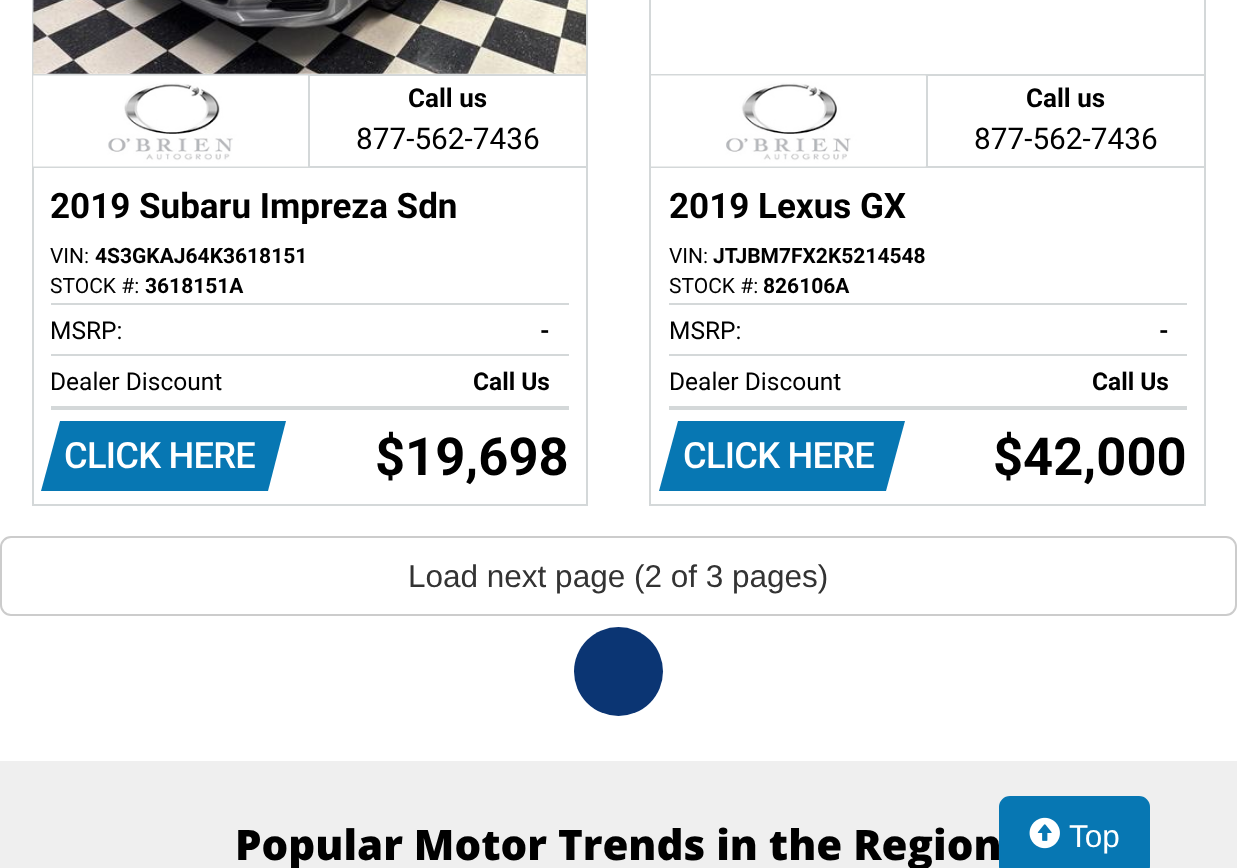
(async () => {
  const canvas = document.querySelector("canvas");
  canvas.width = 1237;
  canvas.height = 868;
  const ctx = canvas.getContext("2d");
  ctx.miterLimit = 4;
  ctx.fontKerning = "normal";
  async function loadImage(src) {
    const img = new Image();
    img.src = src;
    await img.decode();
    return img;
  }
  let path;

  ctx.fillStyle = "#ffffff";
  ctx.fillRect(0, 0, 1237, 868);
  ctx.strokeStyle = "#d4d8d9";
  ctx.lineWidth = 2;
  ctx.strokeRect(33, -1, 554, 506);
  ctx.drawImage(await loadImage("img/1.png"), 33, 0, 554, 74);
  for (const [x, y, w, h, color] of [
    [33, 74, 553, 2, "#d4d8d9"],
    [308, 74, 2, 94, "#d4d8d9"],
    [33, 166, 553, 2, "#d4d8d9"],
  ]) {
    ctx.fillStyle = color;
    ctx.fillRect(x, y, w, h);
  }
  ctx.drawImage(await loadImage("img/2.png"), 33, 75, 275, 92);
  for (const [x, y, w, h, color] of [
    [51, 303, 518, 2, "#d4d8d9"],
    [51, 354, 518, 2, "#d4d8d9"],
    [51, 406, 518, 4, "#d4d8d9"],
  ]) {
    ctx.fillStyle = color;
    ctx.fillRect(x, y, w, h);
  }
  ctx.fillStyle = "#0777b3";
  path = new Path2D("M60 421H286L268 491H41Z");
  ctx.fill(path);
  ctx.strokeRect(650, -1, 555, 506);
  for (const [x, y, w, h, color] of [
    [651, 74, 553, 2, "#d4d8d9"],
    [926, 74, 2, 94, "#d4d8d9"],
    [651, 166, 553, 2, "#d4d8d9"],
  ]) {
    ctx.fillStyle = color;
    ctx.fillRect(x, y, w, h);
  }
  ctx.drawImage(await loadImage("img/3.png"), 651, 75, 275, 92);
  for (const [x, y, w, h, color] of [
    [669, 303, 518, 2, "#d4d8d9"],
    [669, 354, 518, 2, "#d4d8d9"],
    [669, 406, 518, 4, "#d4d8d9"],
  ]) {
    ctx.fillStyle = color;
    ctx.fillRect(x, y, w, h);
  }
  ctx.fillStyle = "#0777b3";
  path = new Path2D("M678 421H905L886 491H659Z");
  ctx.fill(path);
  ctx.beginPath();
  ctx.roundRect(1, 537, 1235, 78, 10);
  ctx.strokeStyle = "#cccccc";
  ctx.stroke();
  ctx.fillStyle = "#0b3573";
  ctx.beginPath();
  ctx.arc(618.5, 671.5, 44.5, 0, Math.PI * 2);
  ctx.fill();
  ctx.fillStyle = "#efefef";
  ctx.fillRect(0, 761, 1237, 107);
  ctx.font = "bold 26px Roboto";
  ctx.fillStyle = "#000000";
  ctx.fillText("Call us", 408, 107);
  ctx.font = "29.75px Roboto";
  ctx.fillText("877-562-7436", 356, 149);
  ctx.save();
  ctx.beginPath();
  ctx.rect(51, 186, 408, 38);
  ctx.clip();
  ctx.font = "bold 35px Roboto";
  ctx.fillText("2019 Subaru Impreza Sdn", 50, 218);
  ctx.restore();
  ctx.font = "21px Roboto";
  ctx.fillText("VIN:", 50, 263);
  ctx.font = "bold 21px Roboto";
  ctx.fillText("4S3GKAJ64K3618151", 95, 263);
  ctx.font = "21px Roboto";
  ctx.fillText("STOCK #:", 50, 293);
  ctx.font = "bold 21px Roboto";
  ctx.fillText("3618151A", 145, 293);
  ctx.font = "24.5px Roboto";
  ctx.fillText("MSRP:", 50, 339);
  ctx.font = "bold 24.5px Roboto";
  ctx.fillText("-", 540, 339);
  ctx.font = "24.5px Roboto";
  ctx.fillText("Dealer Discount", 50, 390);
  ctx.font = "bold 24.5px Roboto";
  ctx.fillText("Call Us", 473, 390);
  ctx.letterSpacing = "-0.75px";
  ctx.font = "500 36.25px Roboto";
  ctx.fillStyle = "#ffffff";
  ctx.fillText("CLICK HERE", 64, 468);
  ctx.letterSpacing = "0px";
  ctx.font = "bold 52.5px Roboto";
  ctx.fillStyle = "#000000";
  ctx.fillText("$19,698", 375, 475);
  ctx.font = "bold 26px Roboto";
  ctx.fillText("Call us", 1026, 107);
  ctx.font = "29.75px Roboto";
  ctx.fillText("877-562-7436", 974, 149);
  ctx.font = "bold 35px Roboto";
  ctx.fillText("2019 Lexus GX", 669, 218);
  ctx.font = "21px Roboto";
  ctx.fillText("VIN:", 669, 263);
  ctx.font = "bold 21px Roboto";
  ctx.fillText("JTJBM7FX2K5214548", 713, 263);
  ctx.font = "21px Roboto";
  ctx.fillText("STOCK #:", 669, 293);
  ctx.font = "bold 21px Roboto";
  ctx.fillText("826106A", 763, 293);
  ctx.font = "24.5px Roboto";
  ctx.fillText("MSRP:", 669, 339);
  ctx.font = "bold 24.5px Roboto";
  ctx.fillText("-", 1159, 339);
  ctx.font = "24.5px Roboto";
  ctx.fillText("Dealer Discount", 669, 390);
  ctx.font = "bold 24.5px Roboto";
  ctx.fillText("Call Us", 1092, 390);
  ctx.letterSpacing = "-0.75px";
  ctx.font = "500 36.25px Roboto";
  ctx.fillStyle = "#ffffff";
  ctx.fillText("CLICK HERE", 683, 468);
  ctx.letterSpacing = "0px";
  ctx.font = "bold 52.5px Roboto";
  ctx.fillStyle = "#000000";
  ctx.fillText("$42,000", 993, 475);
  ctx.font = "31.5px Liberation Sans";
  ctx.fillStyle = "#333333";
  ctx.fillText("Load next page (2 of 3 pages)", 408, 587);
  ctx.font = "800 42px Open Sans";
  ctx.fillStyle = "#000000";
  ctx.fillText("Popular Motor Trends in the Region", 235, 860);
  ctx.fillStyle = "#0777b3";
  ctx.beginPath();
  ctx.roundRect(1000, 797, 149, 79, 10);
  ctx.fill();
  ctx.strokeStyle = "#0777b3";
  ctx.stroke();
  ctx.drawImage(await loadImage("img/4.png"), 1029, 817, 31, 32);
  ctx.font = "31.5px Liberation Sans";
  ctx.fillStyle = "#ffffff";
  ctx.fillText("Top", 1069, 847);
})();
